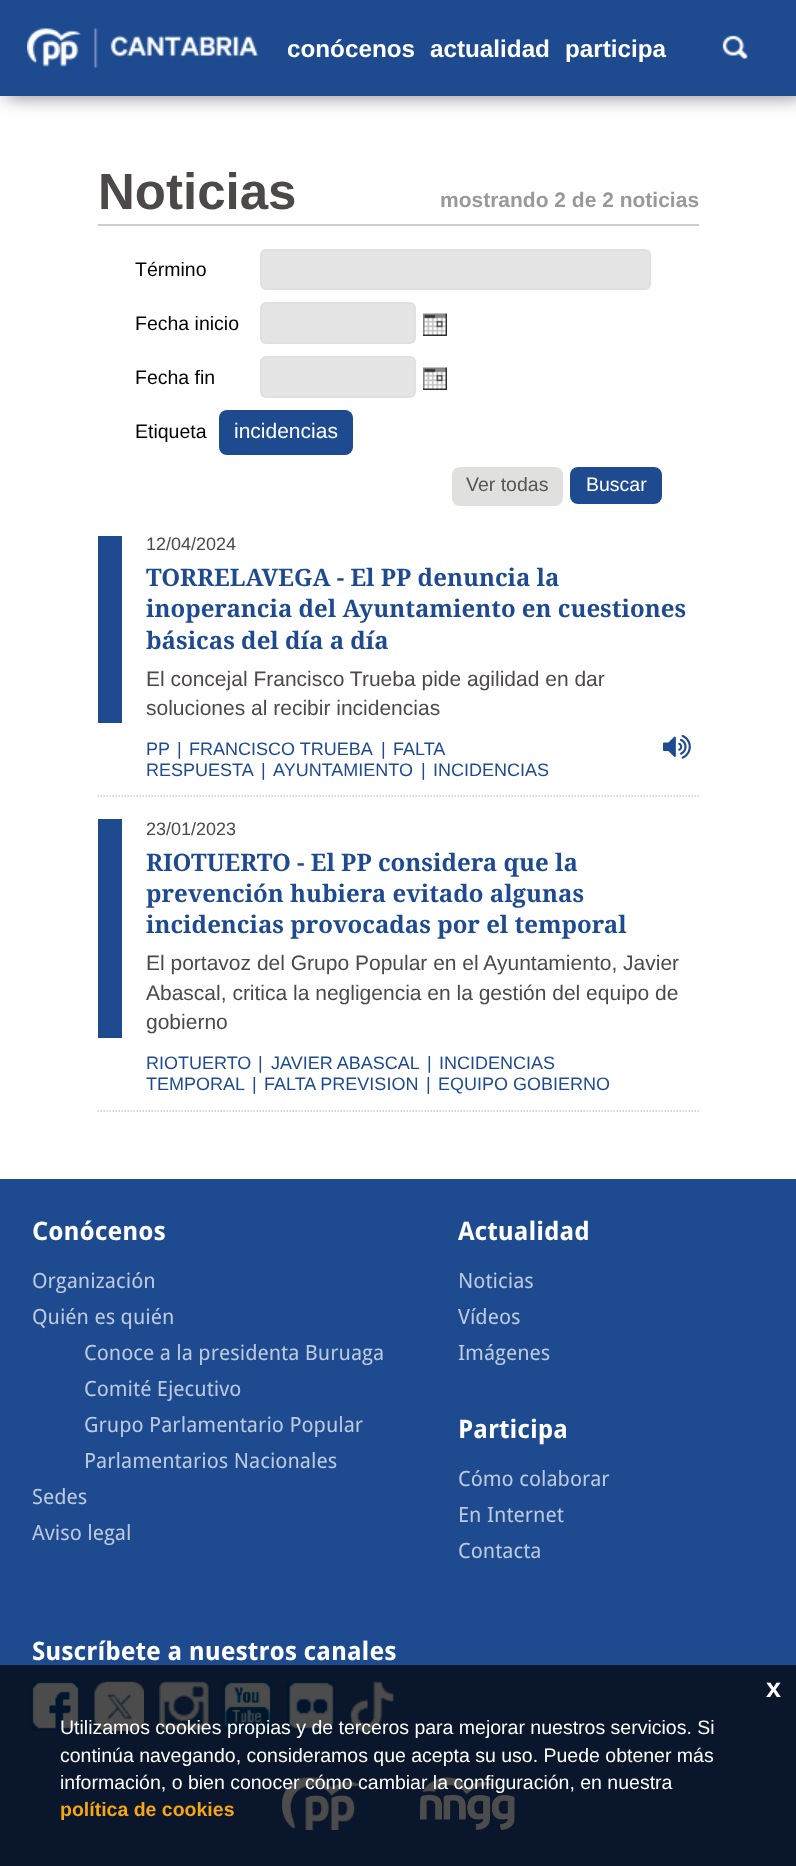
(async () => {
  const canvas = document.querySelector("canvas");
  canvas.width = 796;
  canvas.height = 1866;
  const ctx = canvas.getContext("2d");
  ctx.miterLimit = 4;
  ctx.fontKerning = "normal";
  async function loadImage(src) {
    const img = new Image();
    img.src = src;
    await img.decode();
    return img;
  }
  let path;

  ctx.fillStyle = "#ffffff";
  ctx.fillRect(0, 0, 796, 1866);
  ctx.fillStyle = "rgba(0, 0, 0, 0.5)";
  ctx.filter = "blur(10px)";
  ctx.beginPath();
  ctx.rect(6, 0, 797, 96);
  ctx.fill();
  ctx.filter = "none";
  ctx.fillStyle = "#1e4a90";
  ctx.fillRect(0, 0, 796, 96);
  ctx.drawImage(await loadImage("img/1.png"), 27, 27, 232, 41);
  ctx.drawImage(await loadImage("img/2.png"), 722, 35, 26, 24);
  ctx.fillStyle = "#cccccc";
  ctx.fillRect(98, 224, 601, 2);
  ctx.fillStyle = "#e5e5e5";
  ctx.beginPath();
  ctx.roundRect(261, 250, 389, 39, 5);
  ctx.fill();
  ctx.strokeStyle = "#e0e0df";
  ctx.lineWidth = 2;
  ctx.stroke();
  ctx.beginPath();
  ctx.roundRect(261, 303, 154, 40, 5);
  ctx.fill();
  ctx.stroke();
  ctx.drawImage(await loadImage("img/3.png"), 423, 313, 24, 23);
  ctx.beginPath();
  ctx.roundRect(261, 357, 154, 40, 5);
  ctx.fill();
  ctx.stroke();
  ctx.drawImage(await loadImage("img/3.png"), 423, 367, 24, 23);
  ctx.fillStyle = "#1e4a90";
  ctx.beginPath();
  ctx.roundRect(219, 410, 134, 45, 8);
  ctx.fill();
  ctx.fillStyle = "#e0e0df";
  ctx.beginPath();
  ctx.roundRect(452, 467, 111, 39, 8);
  ctx.fill();
  ctx.fillStyle = "#1e4a90";
  ctx.beginPath();
  ctx.roundRect(570, 467, 92, 37, 8);
  ctx.fill();
  path = new Path2D("M97.5 796H699");
  ctx.strokeStyle = "#cccccc";
  ctx.lineWidth = 1.5;
  ctx.setLineDash([1.5, 1.5]);
  ctx.stroke(path);
  ctx.fillRect(98, 536, 24, 187);
  ctx.drawImage(await loadImage("img/4.png"), 663, 734, 28, 25);
  path = new Path2D("M97.5 1111H699");
  ctx.stroke(path);
  for (const [x, y, w, h, color] of [
    [98, 819, 24, 219, "#1e4a90"],
    [0, 1179, 796, 486, "#1e4a90"],
    [0, 1665, 796, 201, "#09162b"],
  ]) {
    ctx.fillStyle = color;
    ctx.fillRect(x, y, w, h);
  }
  ctx.drawImage(await loadImage("img/5.png"), 31, 1681, 49, 50);
  ctx.drawImage(await loadImage("img/6.png"), 94, 1681, 50, 50);
  ctx.drawImage(await loadImage("img/7.png"), 159, 1681, 50, 49);
  ctx.drawImage(await loadImage("img/8.png"), 223, 1681, 49, 50);
  ctx.drawImage(await loadImage("img/9.png"), 286, 1681, 49, 50);
  ctx.drawImage(await loadImage("img/10.png"), 349, 1681, 46, 52);
  ctx.drawImage(await loadImage("img/11.png"), 282, 1777, 78, 53);
  ctx.drawImage(await loadImage("img/12.png"), 420, 1777, 95, 53);
  ctx.font = "bold 24.25px Liberation Sans";
  ctx.fillStyle = "#ffffff";
  for (const [text, x, y] of [
    ["conócenos", 287, 57],
    ["actualidad", 430, 57],
    ["participa", 565, 57],
  ]) {
    ctx.fillText(text, x, y);
  }
  ctx.font = "bold 51px Liberation Sans";
  ctx.fillStyle = "#4d4949";
  ctx.fillText("Noticias", 98, 209);
  ctx.font = "bold 21px Liberation Sans";
  ctx.fillStyle = "#999999";
  ctx.fillText("mostrando 2 de 2 noticias", 440, 207);
  ctx.font = "19.5px Liberation Sans";
  ctx.fillStyle = "#000000";
  for (const [text, x, y] of [
    ["Término", 135, 276],
    ["Fecha inicio", 135, 330],
    ["Fecha fin", 135, 384],
    ["Etiqueta", 135, 438],
  ]) {
    ctx.fillText(text, x, y);
  }
  ctx.font = "21px Liberation Sans";
  ctx.fillStyle = "#ffffff";
  ctx.fillText("incidencias", 234, 438);
  ctx.font = "19.5px Liberation Sans";
  ctx.fillStyle = "#555555";
  ctx.fillText("Ver todas", 466, 491);
  ctx.fillStyle = "#ffffff";
  ctx.fillText("Buscar", 586, 491);
  ctx.font = "18px Liberation Sans";
  ctx.fillStyle = "#4d4949";
  ctx.fillText("12/04/2024", 146, 550);
  ctx.font = "bold 24px Droid Serif";
  ctx.fillStyle = "#1e4a90";
  for (const [text, x, y] of [
    ["TORRELAVEGA - El PP denuncia la", 146, 586],
    ["inoperancia del Ayuntamiento en cuestiones", 146, 617],
    ["básicas del día a día", 146, 649],
  ]) {
    ctx.fillText(text, x, y);
  }
  ctx.font = "21px Liberation Sans";
  ctx.fillStyle = "#4d4949";
  ctx.fillText("El concejal Francisco Trueba pide agilidad en dar", 146, 686);
  ctx.fillText("soluciones al recibir incidencias", 146, 715);
  ctx.font = "18px Liberation Sans";
  ctx.fillStyle = "#1e4a90";
  for (const [text, x, y] of [
    ["PP", 146, 755],
    ["|", 177, 755],
    ["FRANCISCO TRUEBA", 189, 755],
    ["|", 381, 755],
    ["FALTA", 393, 755],
    ["RESPUESTA", 146, 776],
    ["|", 261, 776],
    ["AYUNTAMIENTO", 273, 776],
    ["|", 421, 776],
    ["INCIDENCIAS", 433, 776],
  ]) {
    ctx.fillText(text, x, y);
  }
  ctx.fillStyle = "#4d4949";
  ctx.fillText("23/01/2023", 146, 835);
  ctx.font = "bold 24px Droid Serif";
  ctx.fillStyle = "#1e4a90";
  for (const [text, x, y] of [
    ["RIOTUERTO - El PP considera que la", 146, 871],
    ["prevención hubiera evitado algunas", 146, 902],
    ["incidencias provocadas por el temporal", 146, 933],
  ]) {
    ctx.fillText(text, x, y);
  }
  ctx.font = "21px Liberation Sans";
  ctx.fillStyle = "#4d4949";
  for (const [text, x, y] of [
    ["El portavoz del Grupo Popular en el Ayuntamiento, Javier", 146, 970],
    ["Abascal, critica la negligencia en la gestión del equipo de", 146, 1000],
    ["gobierno", 146, 1029],
  ]) {
    ctx.fillText(text, x, y);
  }
  ctx.font = "18px Liberation Sans";
  ctx.fillStyle = "#1e4a90";
  for (const [text, x, y] of [
    ["RIOTUERTO", 146, 1069],
    ["|", 258, 1069],
    ["JAVIER ABASCAL", 271, 1069],
    ["|", 427, 1069],
    ["INCIDENCIAS", 439, 1069],
    ["TEMPORAL", 146, 1090],
    ["|", 252, 1090],
    ["FALTA PREVISION", 264, 1090],
    ["|", 426, 1090],
    ["EQUIPO GOBIERNO", 438, 1090],
  ]) {
    ctx.fillText(text, x, y);
  }
  ctx.font = "bold 25.5px Droid Sans";
  ctx.fillStyle = "#ffffff";
  ctx.fillText("Conócenos", 32, 1240);
  ctx.font = "21px Droid Sans";
  ctx.fillStyle = "#bcc9de";
  for (const [text, x, y] of [
    ["Organización", 32, 1288],
    ["Quién es quién", 32, 1324],
    ["Conoce a la presidenta Buruaga", 84, 1360],
    ["Comité Ejecutivo", 84, 1396],
    ["Grupo Parlamentario Popular", 84, 1432],
    ["Parlamentarios Nacionales", 84, 1468],
    ["Sedes", 32, 1504],
    ["Aviso legal", 32, 1540],
  ]) {
    ctx.fillText(text, x, y);
  }
  ctx.font = "bold 25.5px Droid Sans";
  ctx.fillStyle = "#ffffff";
  ctx.fillText("Actualidad", 458, 1240);
  ctx.font = "21px Droid Sans";
  ctx.fillStyle = "#bcc9de";
  for (const [text, x, y] of [
    ["Noticias", 458, 1288],
    ["Vídeos", 458, 1324],
    ["Imágenes", 458, 1360],
  ]) {
    ctx.fillText(text, x, y);
  }
  ctx.font = "bold 25.5px Droid Sans";
  ctx.fillStyle = "#ffffff";
  ctx.fillText("Participa", 458, 1438);
  ctx.font = "21px Droid Sans";
  ctx.fillStyle = "#bcc9de";
  for (const [text, x, y] of [
    ["Cómo colaborar", 458, 1486],
    ["En Internet", 458, 1522],
    ["Contacta", 458, 1558],
  ]) {
    ctx.fillText(text, x, y);
  }
  ctx.font = "bold 25.5px Droid Sans";
  ctx.fillStyle = "#ffffff";
  ctx.fillText("Suscríbete a nuestros canales", 32, 1660);
  ctx.font = "bold 27px Liberation Sans";
  ctx.fillText("x", 766, 1697);
  ctx.font = "19.5px Liberation Sans";
  for (const [text, x, y] of [
    ["Utilizamos cookies propias y de terceros para mejorar nuestros servicios. Si", 60, 1734],
    ["continúa navegando, consideramos que acepta su uso. Puede obtener más", 60, 1762],
    ["información, o bien conocer cómo cambiar la configuración, en nuestra", 60, 1789],
  ]) {
    ctx.fillText(text, x, y);
  }
  ctx.font = "bold 19.5px Liberation Sans";
  ctx.fillStyle = "#f7a614";
  ctx.fillText("política de cookies", 60, 1816);
})();
